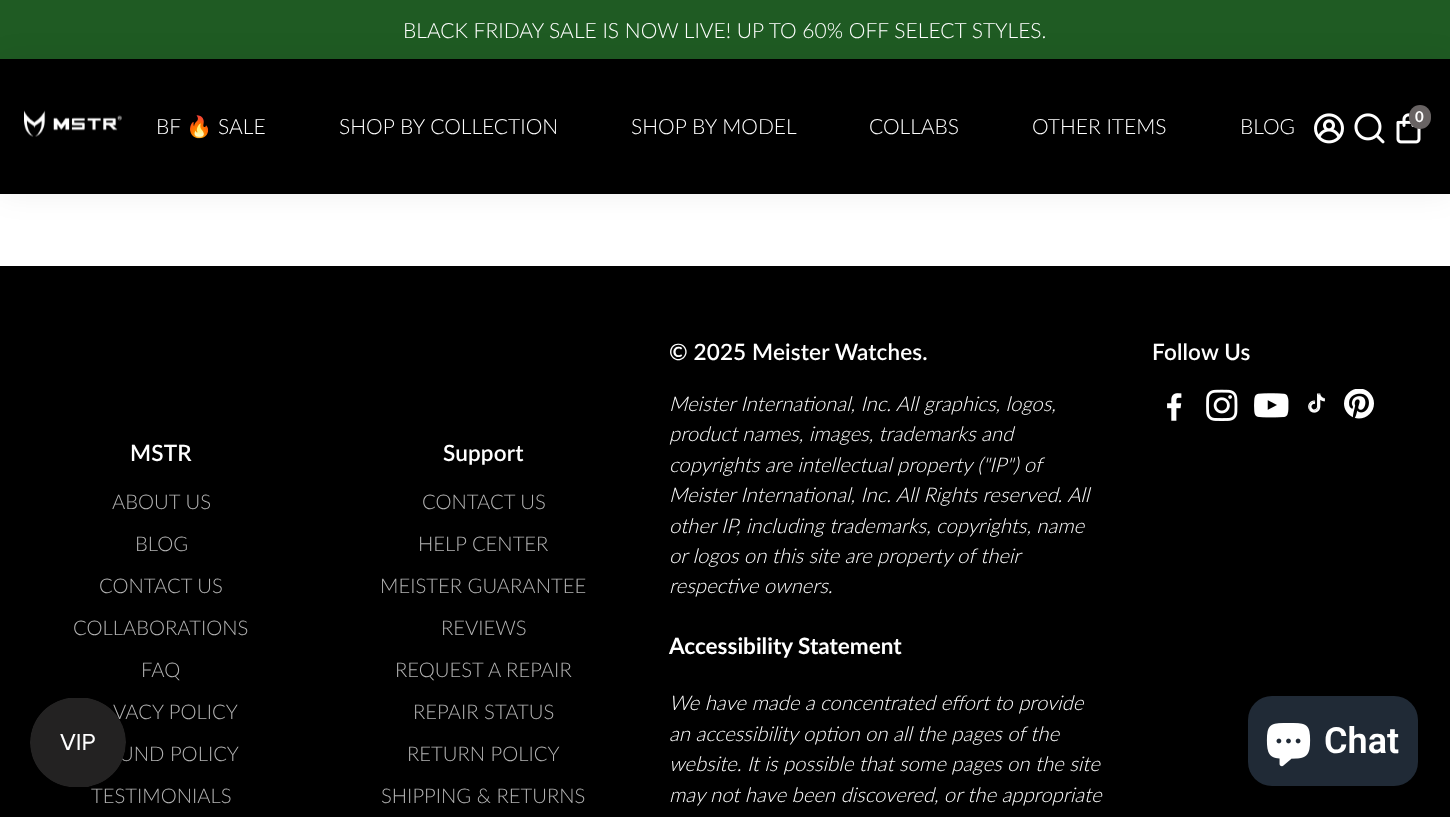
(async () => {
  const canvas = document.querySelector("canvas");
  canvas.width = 1450;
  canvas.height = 817;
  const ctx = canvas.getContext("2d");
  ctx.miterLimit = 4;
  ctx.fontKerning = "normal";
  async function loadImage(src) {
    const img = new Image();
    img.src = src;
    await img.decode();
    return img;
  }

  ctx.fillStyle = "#ffffff";
  ctx.fillRect(0, 0, 1450, 817);
  ctx.fillStyle = "#1f5b23";
  ctx.fillRect(0, 0, 1450, 59);
  ctx.fillStyle = "rgba(0, 0, 0, 0.06)";
  ctx.filter = "blur(15px)";
  ctx.beginPath();
  ctx.rect(0, 59, 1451, 135);
  ctx.fill();
  ctx.filter = "none";
  ctx.fillStyle = "#000000";
  ctx.fillRect(0, 59, 1450, 135);
  ctx.drawImage(await loadImage("img/1.png"), 24, 110, 98, 27);
  ctx.drawImage(await loadImage("img/2.png"), 1314, 113, 30, 31);
  ctx.drawImage(await loadImage("img/3.png"), 1354, 113, 31, 31);
  ctx.drawImage(await loadImage("img/4.png"), 1396, 113, 25, 31);
  ctx.fillStyle = "#686363";
  ctx.beginPath();
  ctx.roundRect(1409, 105, 22, 24, 11);
  ctx.fill();
  ctx.fillStyle = "#000000";
  ctx.fillRect(0, 266, 1450, 551);
  ctx.drawImage(await loadImage("img/5.png"), 1167, 393, 15, 28);
  ctx.drawImage(await loadImage("img/6.png"), 1206, 389, 32, 32);
  ctx.drawImage(await loadImage("img/7.png"), 1254, 393, 35, 25);
  ctx.drawImage(await loadImage("img/8.png"), 1308, 393, 17, 20);
  ctx.drawImage(await loadImage("img/9.png"), 1344, 389, 30, 30);
  ctx.fillStyle = "#202a36";
  ctx.beginPath();
  ctx.roundRect(1248, 696, 170, 90, 24);
  ctx.fill();
  ctx.drawImage(await loadImage("img/11.png"), 1266, 723, 45, 44);
  ctx.font = "300 21px Lato";
  ctx.fillStyle = "#ffffff";
  ctx.fillText("BLACK FRIDAY SALE IS NOW LIVE! UP TO 60% OFF SELECT STYLES.", 403, 38);
  ctx.fillText("BF", 156, 134);
  ctx.font = "21px Noto Color Emoji";
  ctx.fillText("🔥", 186, 134);
  ctx.font = "300 21px Lato";
  for (const [text, x, y] of [
    ["SALE", 218, 134],
    ["SHOP BY COLLECTION", 339, 134],
    ["SHOP BY MODEL", 631, 134],
    ["COLLABS", 869, 134],
    ["OTHER ITEMS", 1032, 134],
    ["BLOG", 1240, 134],
  ]) {
    ctx.fillText(text, x, y);
  }
  ctx.font = "bold 15px Lato";
  ctx.fillText("0", 1415, 122);
  ctx.letterSpacing = "0.15px";
  ctx.font = "600 22.5px Lato";
  ctx.fillText("© 2025 Meister Watches.", 669, 360);
  ctx.letterSpacing = "0px";
  ctx.font = "italic 300 20.25px Lato";
  for (const [text, x, y] of [
    ["Meister International, Inc. All graphics, logos,", 669, 411],
    ["product names, images, trademarks and", 669, 441],
    ["copyrights are intellectual property (\"IP\") of", 669, 472],
    ["Meister International, Inc. All Rights reserved. All", 669, 502],
    ["other IP, including trademarks, copyrights, name", 669, 533],
    ["or logos on this site are property of their", 669, 563],
    ["respective owners.", 669, 593],
  ]) {
    ctx.fillText(text, x, y);
  }
  ctx.font = "bold 22.5px Lato";
  ctx.fillText("Accessibility Statement", 669, 654);
  ctx.font = "italic 300 20.25px Lato";
  for (const [text, x, y] of [
    ["We have made a concentrated effort to provide", 669, 710],
    ["an accessibility option on all the pages of the", 669, 741],
    ["website. It is possible that some pages on the site", 669, 771],
    ["may not have been discovered, or the appropriate", 669, 802],
  ]) {
    ctx.fillText(text, x, y);
  }
  ctx.letterSpacing = "0.15px";
  ctx.font = "600 22.5px Lato";
  ctx.fillText("Follow Us", 1152, 360);
  ctx.fillText("MSTR", 130, 461);
  ctx.letterSpacing = "0px";
  ctx.font = "300 20.25px Lato";
  ctx.fillStyle = "#b3b3b3";
  for (const [text, x, y] of [
    ["ABOUT US", 112, 509],
    ["BLOG", 135, 551],
    ["CONTACT US", 99, 593],
    ["COLLABORATIONS", 73, 635],
    ["FAQ", 141, 677],
    ["VACY POLICY", 113, 719],
    ["UND POLICY", 119, 761],
    ["TESTIMONIALS", 91, 803],
  ]) {
    ctx.fillText(text, x, y);
  }
  ctx.letterSpacing = "0.15px";
  ctx.font = "600 22.5px Lato";
  ctx.fillStyle = "#ffffff";
  ctx.fillText("Support", 443, 461);
  ctx.letterSpacing = "0px";
  ctx.font = "300 20.25px Lato";
  ctx.fillStyle = "#b3b3b3";
  for (const [text, x, y] of [
    ["CONTACT US", 422, 509],
    ["HELP CENTER", 418, 551],
    ["MEISTER GUARANTEE", 380, 593],
    ["REVIEWS", 441, 635],
    ["REQUEST A REPAIR", 395, 677],
    ["REPAIR STATUS", 413, 719],
    ["RETURN POLICY", 407, 761],
    ["SHIPPING & RETURNS", 381, 803],
  ]) {
    ctx.fillText(text, x, y);
  }
  ctx.drawImage(await loadImage("img/10.png"), 30, 698, 96, 89);
  ctx.font = "600 36px Roboto";
  ctx.fillStyle = "#ffffff";
  ctx.fillText("Chat", 1324, 753);
})();
